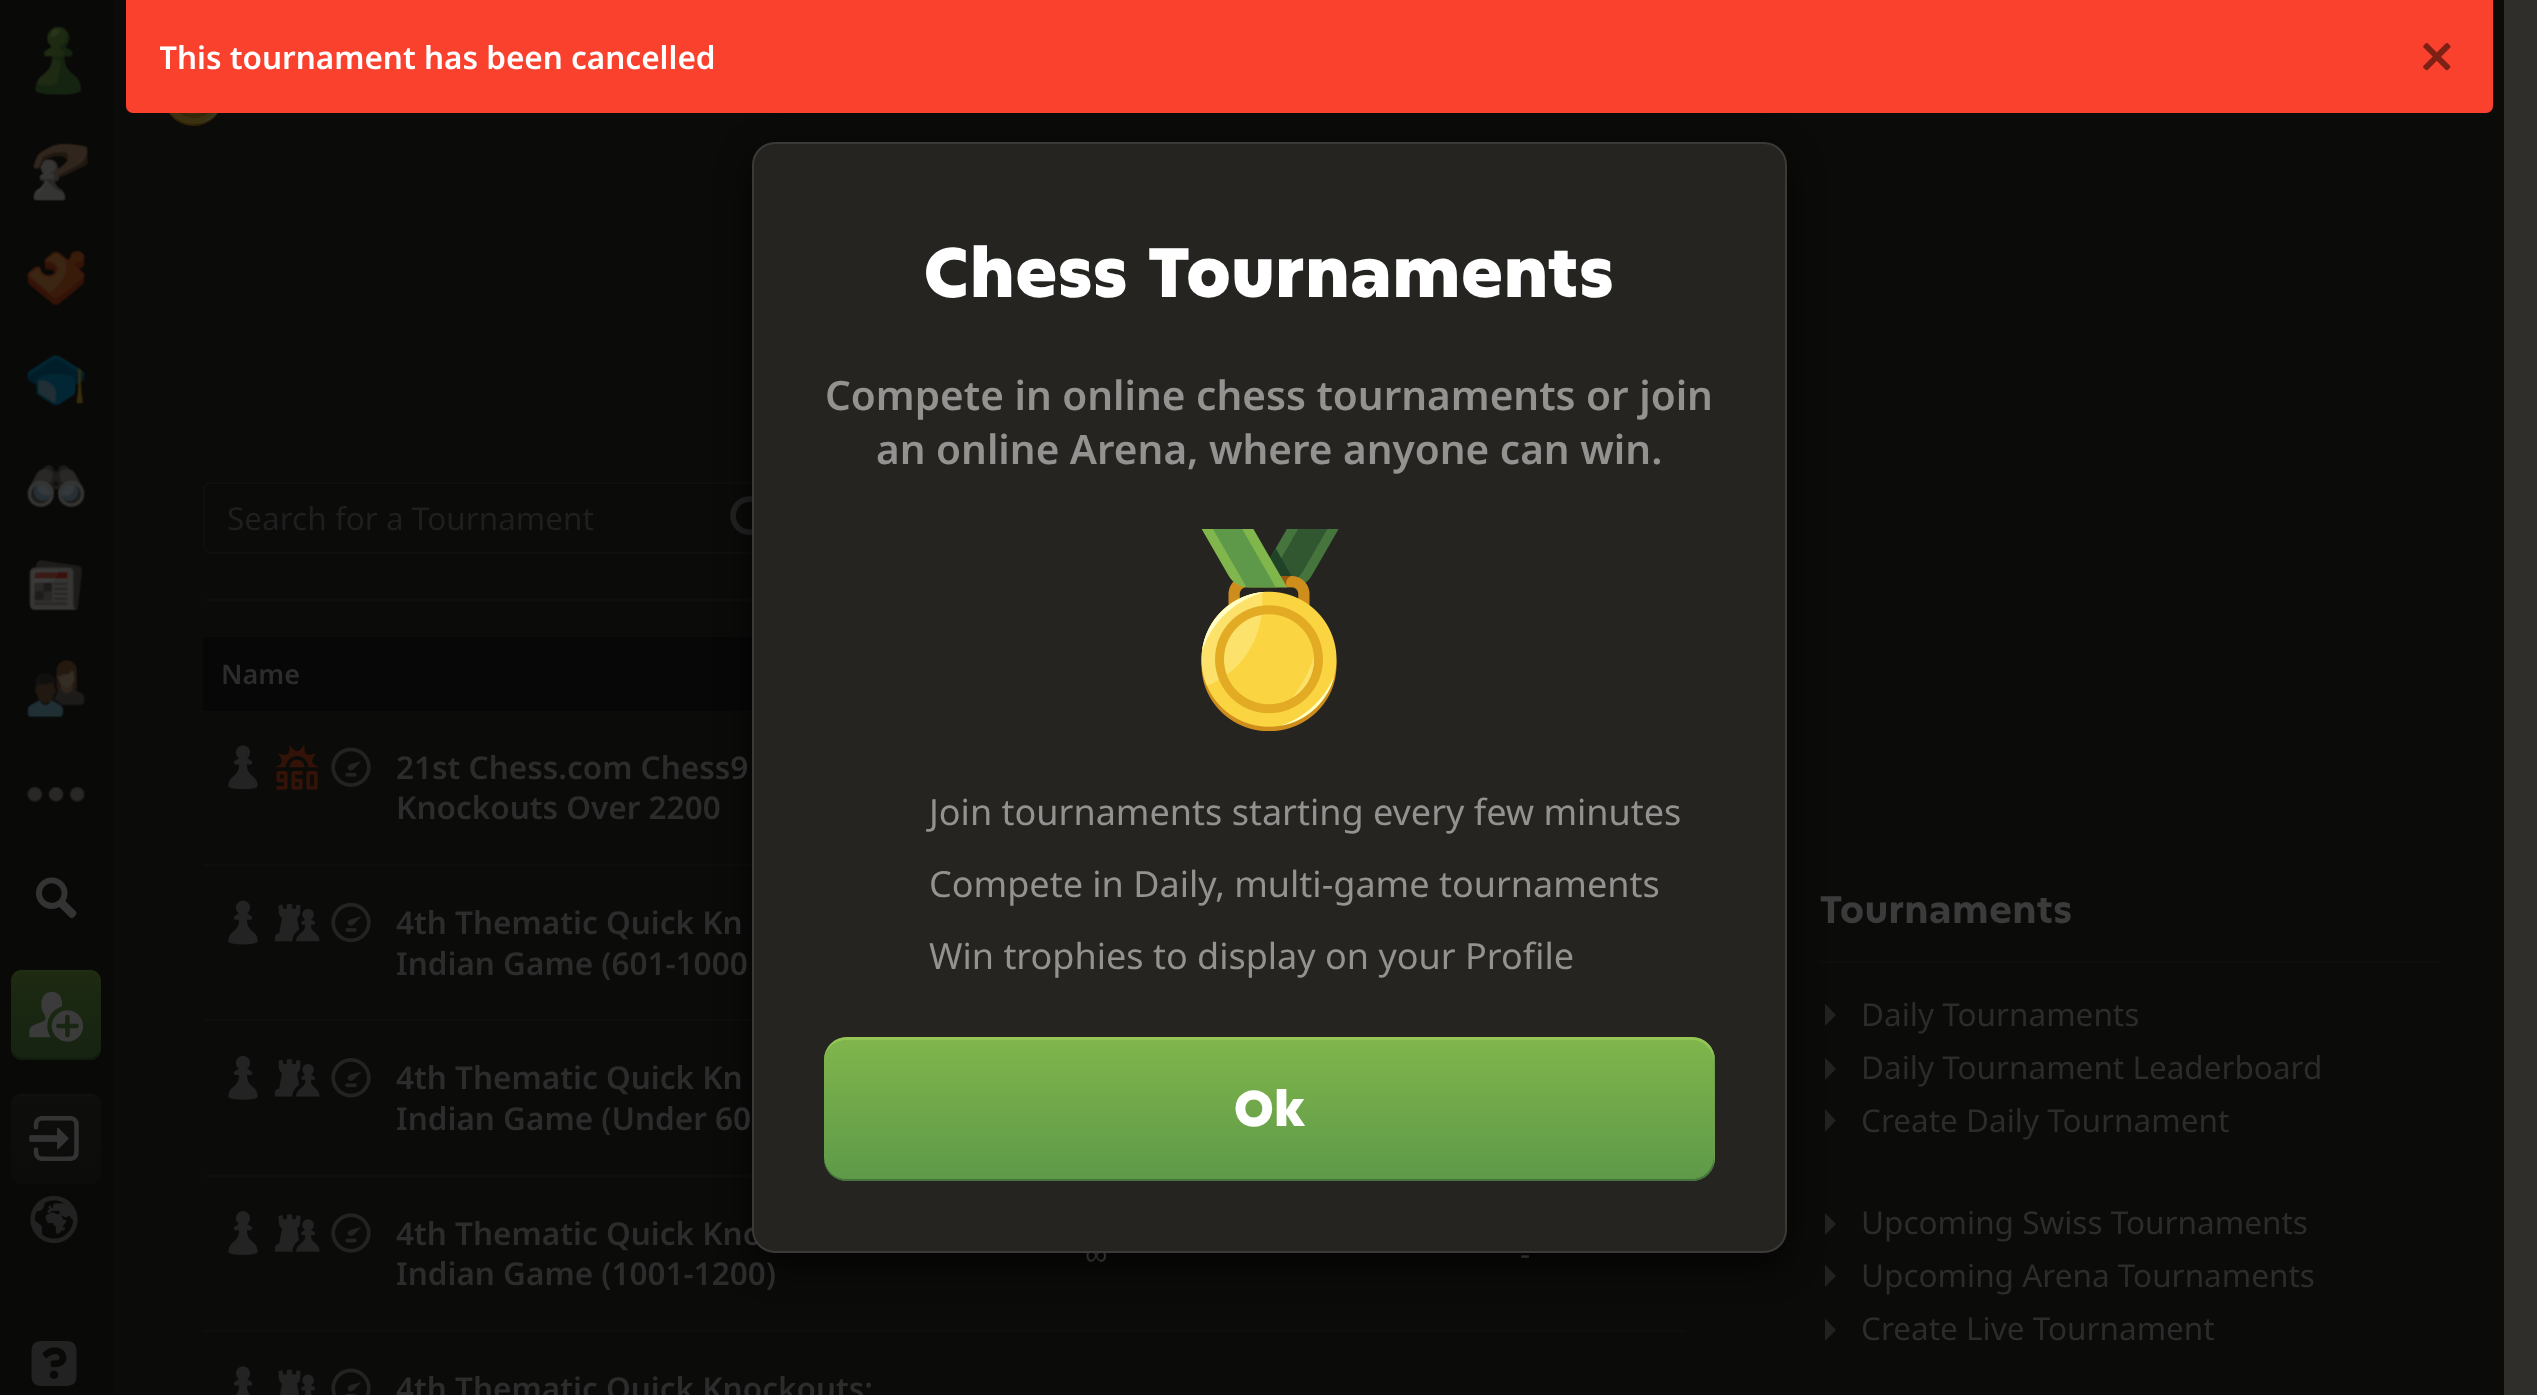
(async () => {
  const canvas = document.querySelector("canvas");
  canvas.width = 2537;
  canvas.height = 1395;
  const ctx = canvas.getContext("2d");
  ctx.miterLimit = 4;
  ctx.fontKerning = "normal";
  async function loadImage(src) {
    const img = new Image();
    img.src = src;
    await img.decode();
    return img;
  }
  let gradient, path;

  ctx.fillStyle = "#302e2b";
  ctx.fillRect(0, 0, 2537, 1395);
  ctx.fillStyle = "#0b0b0a";
  ctx.fillRect(113, 0, 2391, 1395);
  ctx.fillStyle = "#0e0e0d";
  ctx.fillRect(203, 599, 549, 2);
  ctx.beginPath();
  ctx.roundRect(204, 483, 583, 70, 6);
  ctx.strokeStyle = "rgba(59, 59, 59, 0.1)";
  ctx.lineWidth = 2;
  ctx.stroke();
  ctx.drawImage(await loadImage("img/17.png"), 730, 496, 22, 39);
  for (const [x, y, w, h, color] of [
    [203, 637, 549, 74, "#070707"],
    [203, 864, 549, 2, "#0e0e0d"],
    [203, 1019, 549, 2, "#0e0e0d"],
    [203, 1175, 549, 2, "#0e0e0d"],
    [1820, 961, 621, 2, "#0e0e0d"],
  ]) {
    ctx.fillStyle = color;
    ctx.fillRect(x, y, w, h);
  }
  ctx.fillStyle = "#222221";
  path = new Path2D("M1825 1026V1003.5L1836 1015Z");
  ctx.fill(path);
  path = new Path2D("M1825 1080V1057.5L1836 1069Z");
  ctx.fill(path);
  path = new Path2D("M1825 1132V1109L1836 1120.5Z");
  ctx.fill(path);
  path = new Path2D("M1825 1235V1213L1836 1224Z");
  ctx.fill(path);
  path = new Path2D("M1825 1287V1264.5L1836 1276Z");
  ctx.fill(path);
  ctx.fillStyle = "rgba(0, 0, 0, 0.65)";
  ctx.filter = "blur(17px)";
  ctx.beginPath();
  ctx.roundRect(752, 153, 1035, 1112, 23);
  ctx.fill();
  ctx.filter = "none";
  ctx.fillStyle = "#fa412d";
  ctx.beginPath();
  ctx.roundRect(126, 0, 2367, 113, [0, 0, 7, 7]);
  ctx.fill();
  ctx.drawImage(await loadImage("img/1.png"), 2423, 43, 28, 28);
  ctx.fillStyle = "#090908";
  ctx.fillRect(0, 0, 113, 1395);
  ctx.drawImage(await loadImage("img/2.png"), 34, 26, 48, 69);
  ctx.drawImage(await loadImage("img/3.png"), 33, 143, 56, 58);
  ctx.drawImage(await loadImage("img/4.png"), 26, 250, 59, 56);
  ctx.drawImage(await loadImage("img/5.png"), 26, 355, 59, 51);
  ctx.drawImage(await loadImage("img/6.png"), 26, 464, 59, 44);
  ctx.drawImage(await loadImage("img/7.png"), 28, 559, 55, 52);
  ctx.drawImage(await loadImage("img/8.png"), 26, 659, 59, 59);
  ctx.drawImage(await loadImage("img/9.png"), 26, 786, 59, 17);
  ctx.drawImage(await loadImage("img/10.png"), 36, 877, 41, 42);
  gradient = ctx.createLinearGradient(56, 970, 56, 1060);
  gradient.addColorStop(0, "#1e2a11");
  gradient.addColorStop(1, "#152311");
  ctx.fillStyle = gradient;
  ctx.beginPath();
  ctx.roundRect(11, 970, 90, 90, 11);
  ctx.fill();
  ctx.fillStyle = "#101b0e";
  path = new Path2D("M11 1046C11 1061 21 1060 33 1060H79C91 1060 101 1061 101 1046C101 1052 96 1058 90 1058H22C16 1058 11 1052 11 1046Z");
  ctx.fill(path);
  ctx.fillStyle = "rgba(41, 52, 24, 0.4)";
  path = new Path2D("M22 972H90C96 972 101 977 101 983C101 968 90 970 79 970H33C22 970 11 968 11 983C11 977 16 972 22 972Z");
  ctx.fill(path);
  ctx.drawImage(await loadImage("img/11.png"), 29, 991, 54, 51);
  gradient = ctx.createLinearGradient(56, 1094, 56, 1184);
  gradient.addColorStop(0, "rgba(59, 59, 59, 0.1)");
  gradient.addColorStop(1, "rgba(59, 59, 59, 0.05)");
  ctx.fillStyle = gradient;
  ctx.beginPath();
  ctx.roundRect(11, 1094, 90, 90, 11);
  ctx.fill();
  ctx.fillStyle = "rgba(59, 59, 59, 0.08)";
  path = new Path2D("M22 1096H90C96 1096 101 1101 101 1107C101 1092 90 1094 79 1094H33C22 1094 11 1092 11 1107C11 1101 16 1096 22 1096Z");
  ctx.fill(path);
  ctx.drawImage(await loadImage("img/12.png"), 29, 1116, 50, 45);
  ctx.drawImage(await loadImage("img/13.png"), 30, 1195, 48, 49);
  ctx.drawImage(await loadImage("img/14.png"), 31, 1341, 46, 45);
  ctx.drawImage(await loadImage("img/16.png"), 168, 113, 51, 13);
  ctx.drawImage(await loadImage("img/18.png"), 228, 745, 30, 45);
  ctx.drawImage(await loadImage("img/19.png"), 275, 745, 45, 45);
  ctx.drawImage(await loadImage("img/20.png"), 331, 747, 40, 40);
  ctx.drawImage(await loadImage("img/21.png"), 228, 900, 30, 45);
  ctx.drawImage(await loadImage("img/22.png"), 275, 903, 45, 39);
  ctx.drawImage(await loadImage("img/23.png"), 331, 902, 40, 41);
  ctx.drawImage(await loadImage("img/24.png"), 228, 1055, 30, 45);
  ctx.drawImage(await loadImage("img/25.png"), 275, 1059, 45, 38);
  ctx.drawImage(await loadImage("img/26.png"), 331, 1058, 40, 40);
  ctx.drawImage(await loadImage("img/27.png"), 228, 1211, 30, 44);
  ctx.drawImage(await loadImage("img/28.png"), 275, 1214, 45, 38);
  ctx.drawImage(await loadImage("img/29.png"), 331, 1213, 40, 40);
  ctx.fillStyle = "#0e0e0d";
  ctx.fillRect(203, 1330, 1482, 2);
  ctx.drawImage(await loadImage("img/30.png"), 233, 1366, 20, 29);
  ctx.drawImage(await loadImage("img/31.png"), 278, 1369, 38, 26);
  ctx.drawImage(await loadImage("img/32.png"), 331, 1368, 40, 27);
  ctx.fillStyle = "#222221";
  path = new Path2D("M1825 1341V1318.5L1836 1330Z");
  ctx.fill(path);
  ctx.save();
  ctx.beginPath();
  ctx.rect(160, 5, 2221, 105);
  ctx.clip();
  ctx.font = "600 31.5px Noto Sans";
  ctx.fillStyle = "#ffffff";
  ctx.fillText("This tournament has been cancelled", 159, 69);
  ctx.restore();
  ctx.font = "31.5px Noto Sans";
  ctx.fillStyle = "#1f1f1f";
  ctx.fillText("Search for a Tournament", 227, 530);
  ctx.font = "600 27px Noto Sans";
  ctx.fillStyle = "#2c2c2c";
  ctx.fillText("Name", 221, 684);
  ctx.font = "600 31.5px Noto Sans";
  for (const [text, x, y] of [
    ["21st Chess.com Chess9", 396, 779],
    ["Knockouts Over 2200", 396, 819],
    ["4th Thematic Quick Kn", 396, 934],
    ["Indian Game (601-1000", 396, 975],
    ["4th Thematic Quick Kn", 396, 1089],
    ["Indian Game (Under 60", 396, 1130],
    ["4th Thematic Quick Kno", 396, 1245],
    ["Indian Game (1001-1200)", 396, 1285],
  ]) {
    ctx.fillText(text, x, y);
  }
  ctx.font = "31.5px Liberation Sans";
  ctx.fillText("∞", 1085, 1265);
  ctx.fillStyle = "#262421";
  ctx.beginPath();
  ctx.roundRect(752, 142, 1035, 1111, 23);
  ctx.fill();
  ctx.beginPath();
  ctx.roundRect(753, 143, 1033, 1109, 22);
  ctx.strokeStyle = "rgba(255, 255, 255, 0.1)";
  ctx.stroke();
  gradient = ctx.createLinearGradient(1269, 1037, 1269, 1181);
  gradient.addColorStop(0, "#81b64c");
  gradient.addColorStop(1, "#5d9948");
  ctx.fillStyle = gradient;
  ctx.beginPath();
  ctx.roundRect(824, 1037, 891, 144, 23);
  ctx.fill();
  ctx.fillStyle = "#45753c";
  path = new Path2D("M824 1156V1158C824 1171 834 1181 847 1181H1692C1705 1181 1715 1171 1715 1158V1060C1715 1056 1714 1053 1712 1050C1713 1052 1714 1055 1714 1058V1156C1714 1169 1704 1179 1692 1179H846C834 1179 824 1169 824 1156Z");
  ctx.fill(path);
  ctx.fillStyle = "rgba(178, 224, 104, 0.4)";
  path = new Path2D("M846 1040H1692C1704 1040 1714 1050 1714 1062V1161L1713 1167C1714 1164 1715 1161 1715 1158V1060C1715 1047 1705 1037 1692 1037H847C834 1037 824 1047 824 1060V1062C824 1050 834 1040 846 1040Z");
  ctx.fill(path);
  ctx.font = "800 50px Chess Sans";
  ctx.fillStyle = "#ffffff";
  ctx.fillText("Ok", 1234, 1126);
  ctx.font = "36px Noto Sans";
  ctx.fillStyle = "#939290";
  for (const [text, x, y] of [
    ["Win trophies to display on your Profile", 929, 969],
    ["Compete in Daily, multi-game tournaments", 929, 897],
    ["Join tournaments starting every few minutes", 929, 825],
  ]) {
    ctx.fillText(text, x, y);
  }
  ctx.drawImage(await loadImage("img/15.png"), 1201, 529, 138, 202);
  ctx.font = "600 40.5px Noto Sans";
  ctx.fillText("an online Arena, where anyone can win.", 876, 464);
  ctx.fillText("Compete in online chess tournaments or join", 825, 410);
  ctx.font = "800 69.75px Chess Sans";
  ctx.fillStyle = "#ffffff";
  ctx.fillText("Chess Tournaments", 924, 297);
  ctx.font = "31.5px Noto Sans";
  ctx.fillStyle = "#2c2c2c";
  ctx.fillText("-", 1520, 1265);
  ctx.font = "600 31.5px Noto Sans";
  ctx.fillText("4th Thematic Quick Knockouts:", 396, 1400);
  ctx.font = "bold 38.25px Chess Sans";
  ctx.fillStyle = "#3b3b3b";
  ctx.fillText("Tournaments", 1820, 923);
  ctx.font = "31.5px Noto Sans";
  ctx.fillStyle = "#2c2c2c";
  for (const [text, x, y] of [
    ["Daily Tournaments", 1861, 1026],
    ["Daily Tournament Leaderboard", 1861, 1079],
    ["Create Daily Tournament", 1861, 1132],
    ["Upcoming Swiss Tournaments", 1861, 1234],
    ["Upcoming Arena Tournaments", 1861, 1287],
    ["Create Live Tournament", 1861, 1340],
  ]) {
    ctx.fillText(text, x, y);
  }
})();
